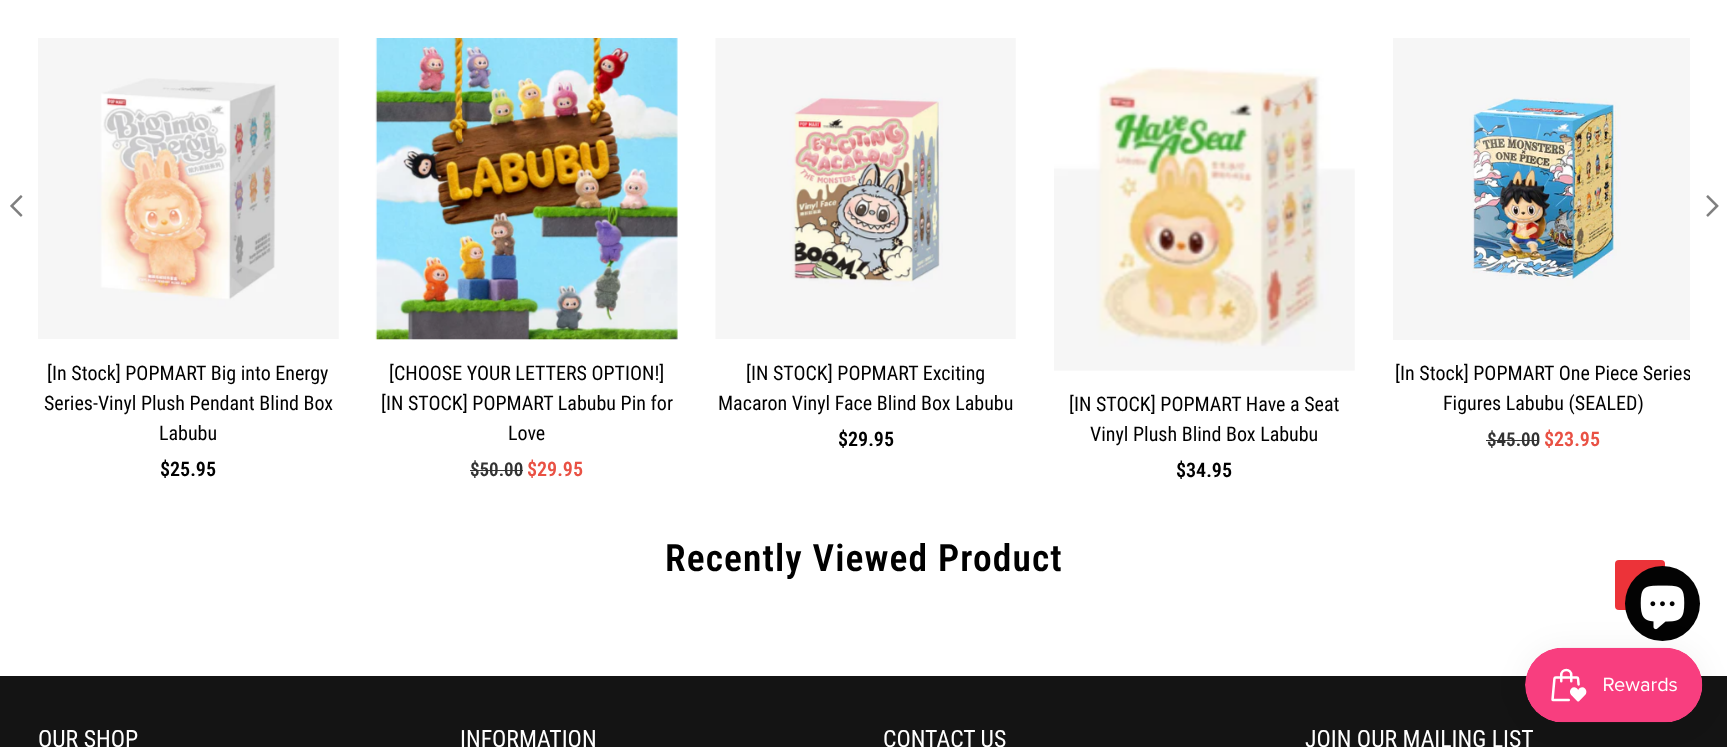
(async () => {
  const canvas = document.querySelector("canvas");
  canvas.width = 1727;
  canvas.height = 747;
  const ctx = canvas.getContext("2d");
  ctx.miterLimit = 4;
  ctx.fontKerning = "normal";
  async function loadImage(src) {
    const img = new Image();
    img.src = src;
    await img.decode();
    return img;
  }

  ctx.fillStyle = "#ffffff";
  ctx.fillRect(0, 0, 1727, 747);
  ctx.drawImage(await loadImage("img/1.png"), 10, 195, 13, 22);
  ctx.drawImage(await loadImage("img/2.png"), 1706, 195, 13, 22);
  ctx.drawImage(await loadImage("img/3.png"), 38, 38, 301, 301);
  ctx.drawImage(await loadImage("img/4.png"), 375, 38, 303, 302);
  ctx.fillStyle = "#333333";
  ctx.fillRect(470, 470, 53, 1);
  ctx.drawImage(await loadImage("img/5.png"), 715, 38, 301, 301);
  ctx.drawImage(await loadImage("img/6.png"), 1054, 67, 301, 304);
  ctx.drawImage(await loadImage("img/7.png"), 1393, 38, 297, 302);
  ctx.fillRect(1486, 440, 53, 1);
  ctx.fillStyle = "#141414";
  ctx.fillRect(0, 676, 1727, 71);
  ctx.fillStyle = "#ec3339";
  ctx.beginPath();
  ctx.roundRect(1615, 560, 50, 50, 4);
  ctx.fill();
  ctx.fillStyle = "#030303";
  ctx.beginPath();
  ctx.arc(1662.5, 603.5, 37.5, 0, Math.PI * 2);
  ctx.fill();
  ctx.drawImage(await loadImage("img/8.png"), 1640, 585, 45, 45);
  ctx.fillStyle = "rgba(0, 0, 0, 0.05)";
  ctx.filter = "blur(15.5px)";
  ctx.beginPath();
  ctx.roundRect(1525, 648, 178, 75, 37.5);
  ctx.fill();
  ctx.filter = "none";
  ctx.drawImage(await loadImage("img/9.png"), 1525, 647, 178, 76);
  ctx.font = "20px Roboto Condensed";
  ctx.fillStyle = "#000000";
  for (const [text, x, y] of [
    ["[In Stock] POPMART Big into Energy", 47, 380],
    ["Series-Vinyl Plush Pendant Blind Box", 44, 410],
    ["Labubu", 159, 440],
  ]) {
    ctx.fillText(text, x, y);
  }
  ctx.font = "600 20px Roboto Condensed";
  ctx.fillText("$25.95", 160, 476);
  ctx.font = "20px Roboto Condensed";
  for (const [text, x, y] of [
    ["[CHOOSE YOUR LETTERS OPTION!]", 389, 380],
    ["[IN STOCK] POPMART Labubu Pin for", 381, 410],
    ["Love", 508, 440],
  ]) {
    ctx.fillText(text, x, y);
  }
  ctx.font = "600 19px Roboto Condensed";
  ctx.fillStyle = "#333333";
  ctx.fillText("$50.00", 470, 476);
  ctx.font = "600 20px Roboto Condensed";
  ctx.fillStyle = "#e95144";
  ctx.fillText("$29.95", 527, 476);
  ctx.font = "20px Roboto Condensed";
  ctx.fillStyle = "#000000";
  ctx.fillText("[IN STOCK] POPMART Exciting", 746, 380);
  ctx.fillText("Macaron Vinyl Face Blind Box Labubu", 718, 410);
  ctx.font = "600 20px Roboto Condensed";
  ctx.fillText("$29.95", 838, 446);
  ctx.font = "20px Roboto Condensed";
  ctx.fillText("[IN STOCK] POPMART Have a Seat", 1069, 411);
  ctx.fillText("Vinyl Plush Blind Box Labubu", 1090, 441);
  ctx.font = "600 20px Roboto Condensed";
  ctx.fillText("$34.95", 1176, 477);
  ctx.save();
  ctx.beginPath();
  ctx.rect(0, 39, 1690, 485);
  ctx.clip();
  ctx.font = "20px Roboto Condensed";
  ctx.fillText("[In Stock] POPMART One Piece Series", 1395, 380);
  ctx.restore();
  ctx.font = "20px Roboto Condensed";
  ctx.fillText("Figures Labubu (SEALED)", 1443, 410);
  ctx.font = "600 19px Roboto Condensed";
  ctx.fillStyle = "#333333";
  ctx.fillText("$45.00", 1487, 446);
  ctx.font = "600 20px Roboto Condensed";
  ctx.fillStyle = "#e95144";
  ctx.fillText("$23.95", 1544, 446);
  ctx.letterSpacing = "1.1px";
  ctx.font = "600 37.5px Roboto Condensed";
  ctx.fillStyle = "#000000";
  ctx.fillText("Recently Viewed Product", 665, 571);
  ctx.letterSpacing = "0px";
  ctx.font = "23.75px Roboto Condensed";
  ctx.fillStyle = "#ffffff";
  for (const [text, x, y] of [
    ["OUR SHOP", 38, 747],
    ["INFORMATION", 460, 747],
    ["CONTACT US", 883, 747],
    ["JOIN OUR MAILING LIST", 1305, 747],
  ]) {
    ctx.fillText(text, x, y);
  }
})();
